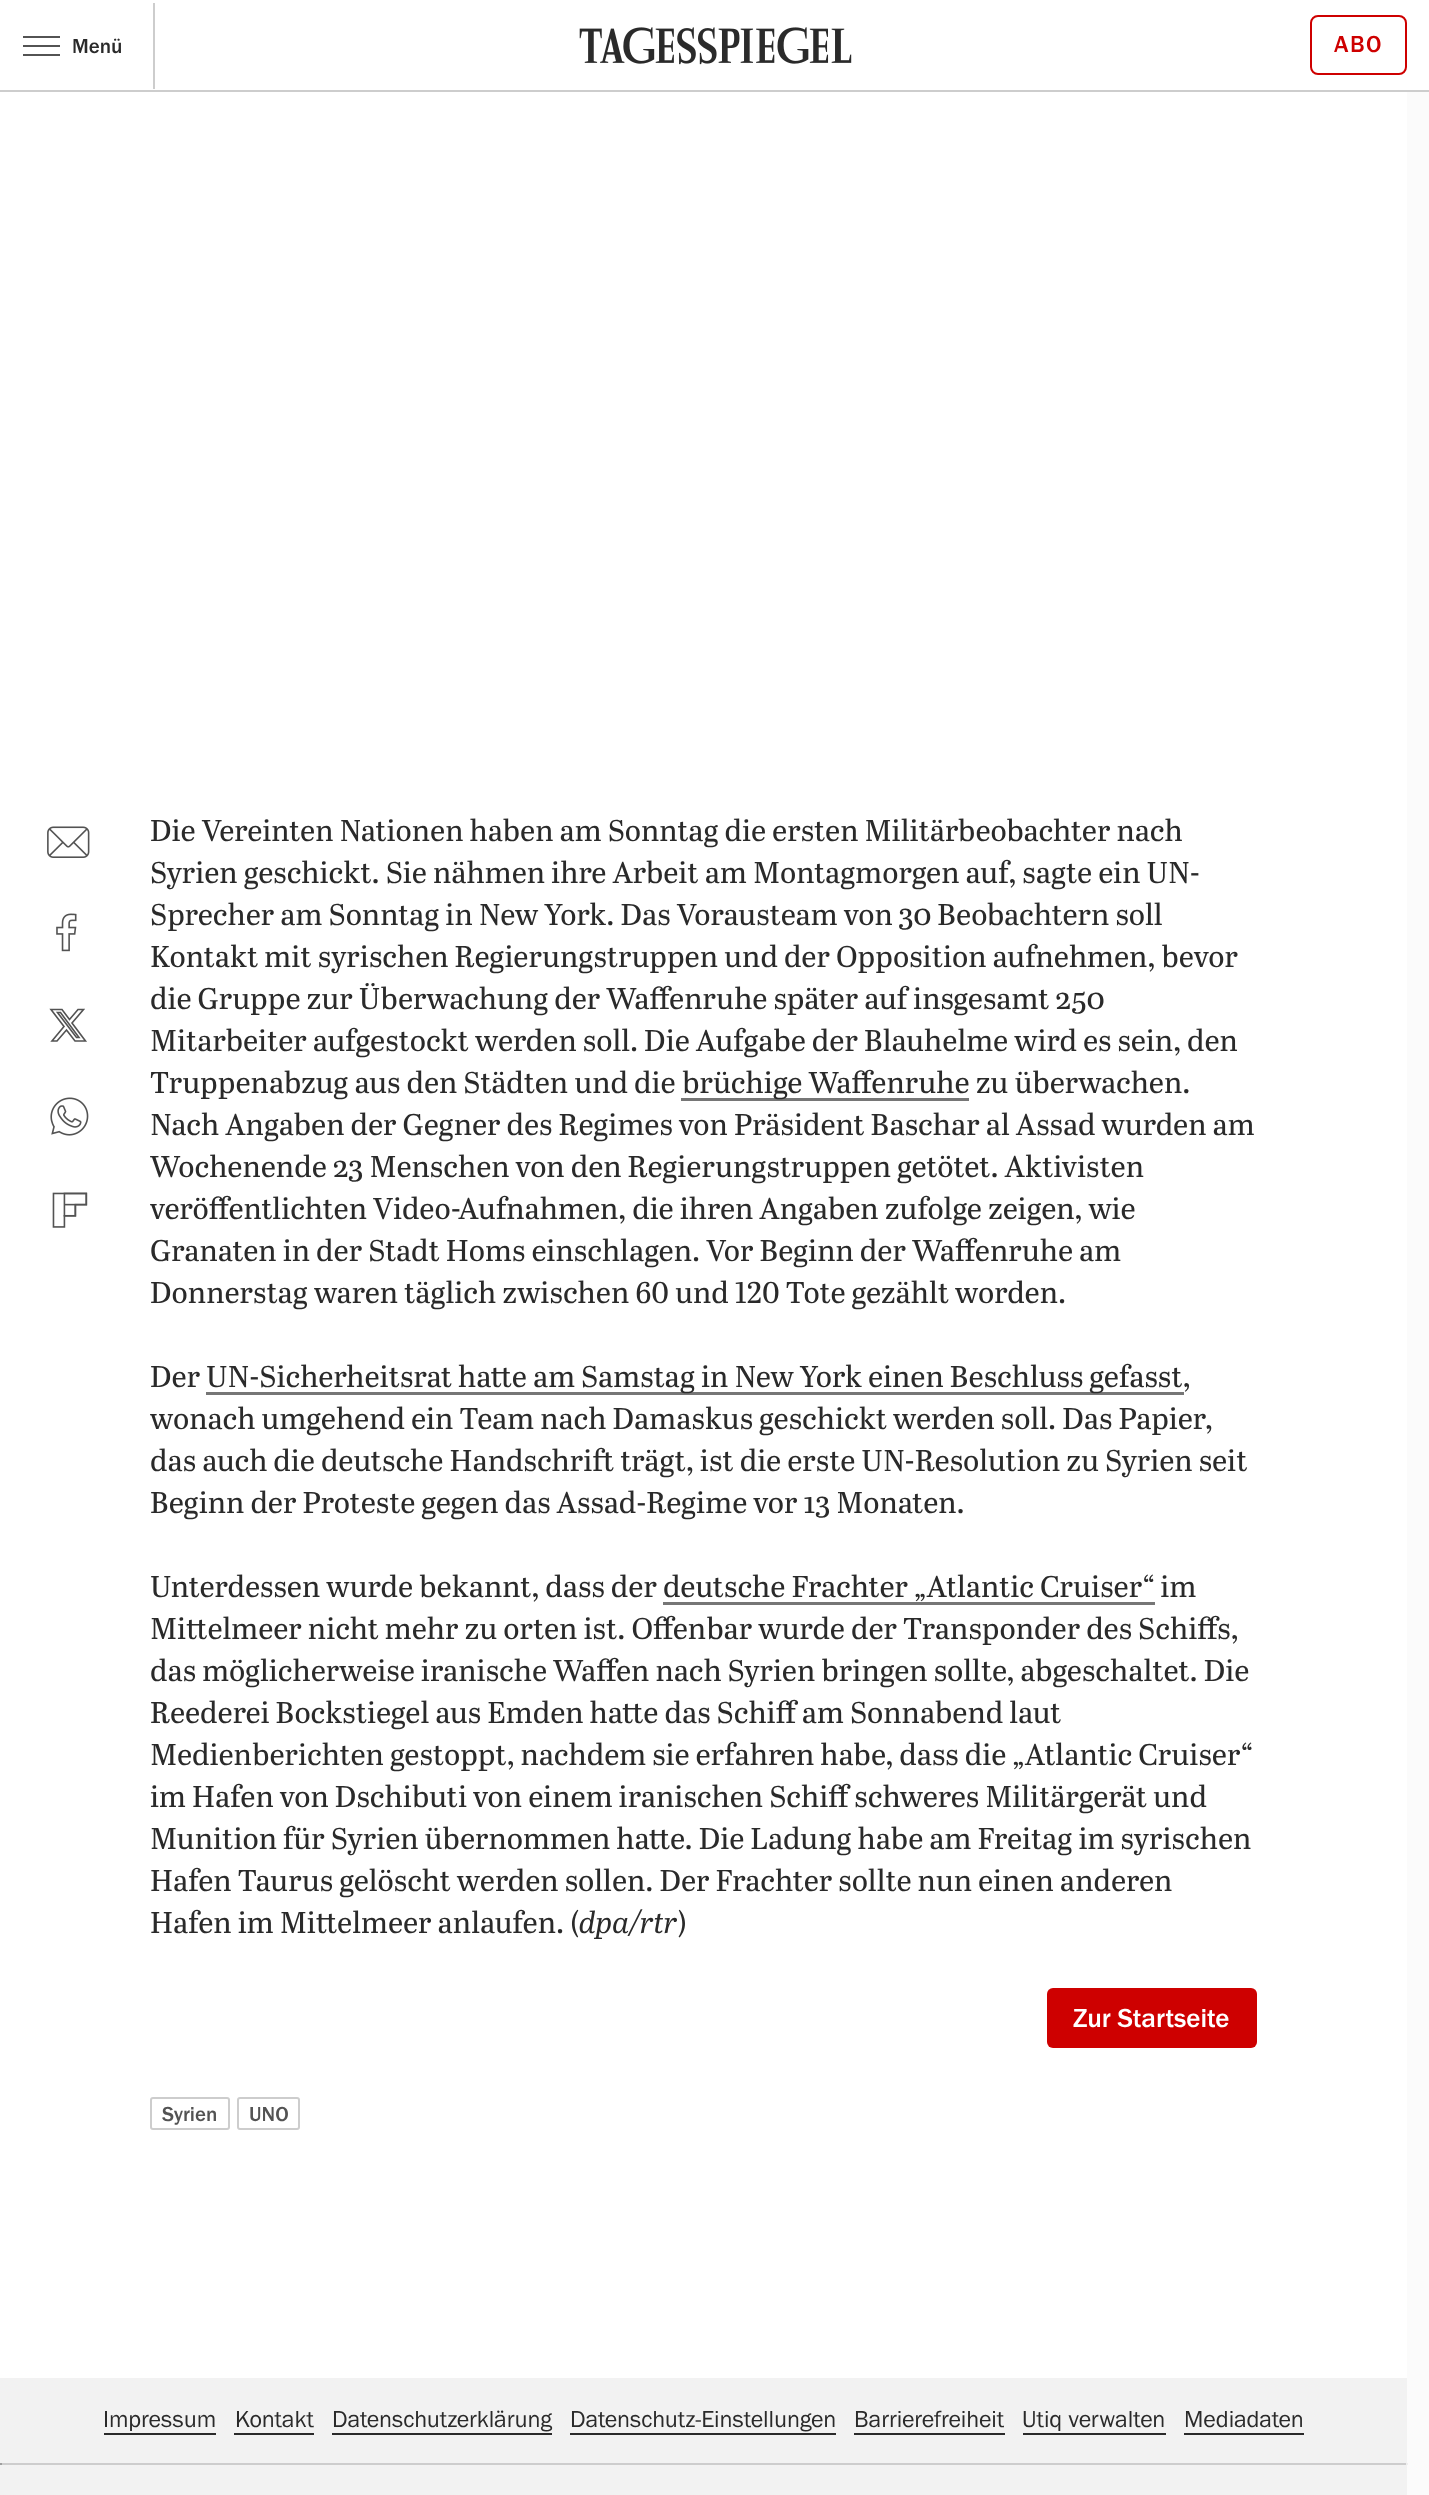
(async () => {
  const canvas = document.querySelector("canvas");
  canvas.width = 1429;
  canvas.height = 2495;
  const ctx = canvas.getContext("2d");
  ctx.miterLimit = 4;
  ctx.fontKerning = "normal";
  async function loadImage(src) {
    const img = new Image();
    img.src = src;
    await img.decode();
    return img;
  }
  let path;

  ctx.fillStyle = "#fbfbfb";
  ctx.fillRect(0, 0, 1429, 2495);
  for (const [x, y, w, h, color] of [
    [0, 2378, 1407, 117, "#f2f2f2"],
    [0, 0, 1429, 90, "#ffffff"],
    [0, 90, 1429, 2, "#cdcdcd"],
    [153, 3, 2, 86, "#cdcdcd"],
  ]) {
    ctx.fillStyle = color;
    ctx.fillRect(x, y, w, h);
  }
  ctx.save();
  ctx.beginPath();
  ctx.rect(23, 36, 37, 20);
  ctx.clip();
  path = new Path2D("M22.5 37H60M22.5 46H60M22.5 55H60");
  ctx.strokeStyle = "#535353";
  ctx.lineWidth = 1.9;
  ctx.stroke(path);
  ctx.restore();
  ctx.drawImage(await loadImage("img/1.png"), 579, 27, 273, 38);
  ctx.beginPath();
  ctx.roundRect(1311, 16, 95, 58, 7);
  ctx.strokeStyle = "#ce0000";
  ctx.lineWidth = 2;
  ctx.stroke();
  ctx.fillStyle = "#ffffff";
  ctx.fillRect(0, 92, 1407, 2286);
  ctx.drawImage(await loadImage("img/2.png"), 47, 826, 43, 32);
  ctx.drawImage(await loadImage("img/3.png"), 56, 913, 21, 39);
  path = new Path2D("M78 1009.5H83.5L72 1023L85.5 1041H75L66.5 1030L57 1041H52L64 1026.5L51 1009.5H62L69.5 1019.5ZM76.5 1037.5H79L60.5 1012.5H57.5Z");
  ctx.strokeStyle = "#535353";
  ctx.lineWidth = 1.6;
  ctx.stroke(path);
  ctx.drawImage(await loadImage("img/4.png"), 50, 1097, 39, 39);
  ctx.drawImage(await loadImage("img/5.png"), 52, 1192, 36, 36);
  for (const [x, y, w, h, color] of [
    [681, 1098, 288, 3, "#767676"],
    [206, 1392, 978, 3, "#767676"],
    [663, 1602, 492, 3, "#767676"],
  ]) {
    ctx.fillStyle = color;
    ctx.fillRect(x, y, w, h);
  }
  ctx.fillStyle = "#ce0000";
  ctx.beginPath();
  ctx.roundRect(1047, 1988, 210, 60, 6);
  ctx.fill();
  ctx.beginPath();
  ctx.roundRect(151, 2098, 78, 31, 2);
  ctx.strokeStyle = "#cdcdcd";
  ctx.lineWidth = 2;
  ctx.stroke();
  ctx.beginPath();
  ctx.roundRect(238, 2098, 61, 31, 2);
  ctx.stroke();
  for (const [x, y, w, h, color] of [
    [104, 2433, 112, 2, "#2a2a2a"],
    [234, 2433, 80, 2, "#2a2a2a"],
    [332, 2433, 220, 2, "#2a2a2a"],
    [570, 2433, 266, 2, "#2a2a2a"],
    [854, 2433, 151, 2, "#2a2a2a"],
    [1023, 2433, 143, 2, "#2a2a2a"],
    [1184, 2433, 120, 2, "#2a2a2a"],
    [0, 2463, 1407, 2, "#cdcdcd"],
    [1406, 2463, 2, 2, "#eeeeee"],
    [0, 2463, 2, 2, "#9f9f9f"],
  ]) {
    ctx.fillStyle = color;
    ctx.fillRect(x, y, w, h);
  }
  ctx.font = "500 21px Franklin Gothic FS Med";
  ctx.fillStyle = "#2a2a2a";
  ctx.fillText("Menü", 72, 53);
  ctx.letterSpacing = "1.5px";
  ctx.font = "500 24px Franklin Gothic FS Med";
  ctx.fillStyle = "#ce0000";
  ctx.fillText("ABO", 1334, 52);
  ctx.letterSpacing = "0px";
  ctx.font = "30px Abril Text";
  ctx.fillStyle = "#2a2a2a";
  for (const [text, x, y] of [
    ["Die Vereinten Nationen haben am Sonntag die ersten Militärbeobachter nach", 150, 841],
    ["Syrien geschickt. Sie nähmen ihre Arbeit am Montagmorgen auf, sagte ein UN-", 150, 883],
    ["Sprecher am Sonntag in New York. Das Vorausteam von 30 Beobachtern soll", 150, 925],
    ["Kontakt mit syrischen Regierungstruppen und der Opposition aufnehmen, bevor", 150, 967],
    ["die Gruppe zur Überwachung der Waffenruhe später auf insgesamt 250", 150, 1009],
    ["Mitarbeiter aufgestockt werden soll. Die Aufgabe der Blauhelme wird es sein, den", 150, 1051],
    ["Truppenabzug aus den Städten und die", 150, 1093],
    ["brüchige Waffenruhe zu überwachen.", 682, 1093],
    ["Nach Angaben der Gegner des Regimes von Präsident Baschar al Assad wurden am", 150, 1135],
    ["Wochenende 23 Menschen von den Regierungstruppen getötet. Aktivisten", 150, 1177],
    ["veröffentlichten Video-Aufnahmen, die ihren Angaben zufolge zeigen, wie", 150, 1219],
    ["Granaten in der Stadt Homs einschlagen. Vor Beginn der Waffenruhe am", 150, 1261],
  ]) {
    ctx.fillText(text, x, y);
  }
  ctx.font = "30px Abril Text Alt";
  ctx.fillText("Donnerstag waren täglich zwischen 60 und 120 Tote gezählt worden.", 150, 1303);
  ctx.font = "30px Abril Text";
  for (const [text, x, y] of [
    ["Der", 150, 1387],
    ["UN-Sicherheitsrat hatte am Samstag in New York einen Beschluss gefasst,", 206, 1387],
    ["wonach umgehend ein Team nach Damaskus geschickt werden soll. Das Papier,", 150, 1429],
    ["das auch die deutsche Handschrift trägt, ist die erste UN-Resolution zu Syrien seit", 150, 1471],
    ["Beginn der Proteste gegen das Assad-Regime vor 13 Monaten.", 150, 1513],
    ["Unterdessen wurde bekannt, dass der deutsche Frachter „Atlantic Cruiser“ im", 150, 1597],
    ["Mittelmeer nicht mehr zu orten ist. Offenbar wurde der Transponder des Schiffs,", 150, 1639],
    ["das möglicherweise iranische Waffen nach Syrien bringen sollte, abgeschaltet. Die", 150, 1681],
    ["Reederei Bockstiegel aus Emden hatte das Schiff am Sonnabend laut", 150, 1723],
    ["Medienberichten gestoppt, nachdem sie erfahren habe, dass die „Atlantic Cruiser“", 150, 1765],
    ["im Hafen von Dschibuti von einem iranischen Schiff schweres Militärgerät und", 150, 1807],
    ["Munition für Syrien übernommen hatte. Die Ladung habe am Freitag im syrischen", 150, 1849],
    ["Hafen Taurus gelöscht werden sollen. Der Frachter sollte nun einen anderen", 150, 1891],
    ["Hafen im Mittelmeer anlaufen. (", 150, 1933],
  ]) {
    ctx.fillText(text, x, y);
  }
  ctx.font = "italic 30px Abril Text";
  ctx.fillText("dpa/rtr", 579, 1933);
  ctx.font = "30px Abril Text";
  ctx.fillText(")", 678, 1933);
  ctx.font = "500 27px Franklin Gothic FS Med";
  ctx.fillStyle = "#ffffff";
  ctx.fillText("Zur Startseite", 1073, 2027);
  ctx.font = "500 21px Franklin Gothic FS Med";
  ctx.fillStyle = "#535353";
  ctx.fillText("Syrien", 162, 2121);
  ctx.fillText("UNO", 249, 2121);
  ctx.font = "24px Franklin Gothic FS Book";
  ctx.fillStyle = "#2a2a2a";
  for (const [text, x, y] of [
    ["Impressum", 103, 2427],
    ["Kontakt", 235, 2427],
    ["Datenschutzerklärung", 332, 2427],
    ["Datenschutz-Einstellungen", 570, 2427],
    ["Barrierefreiheit", 854, 2427],
    ["Utiq verwalten", 1022, 2427],
    ["Mediadaten", 1184, 2427],
  ]) {
    ctx.fillText(text, x, y);
  }
})();
